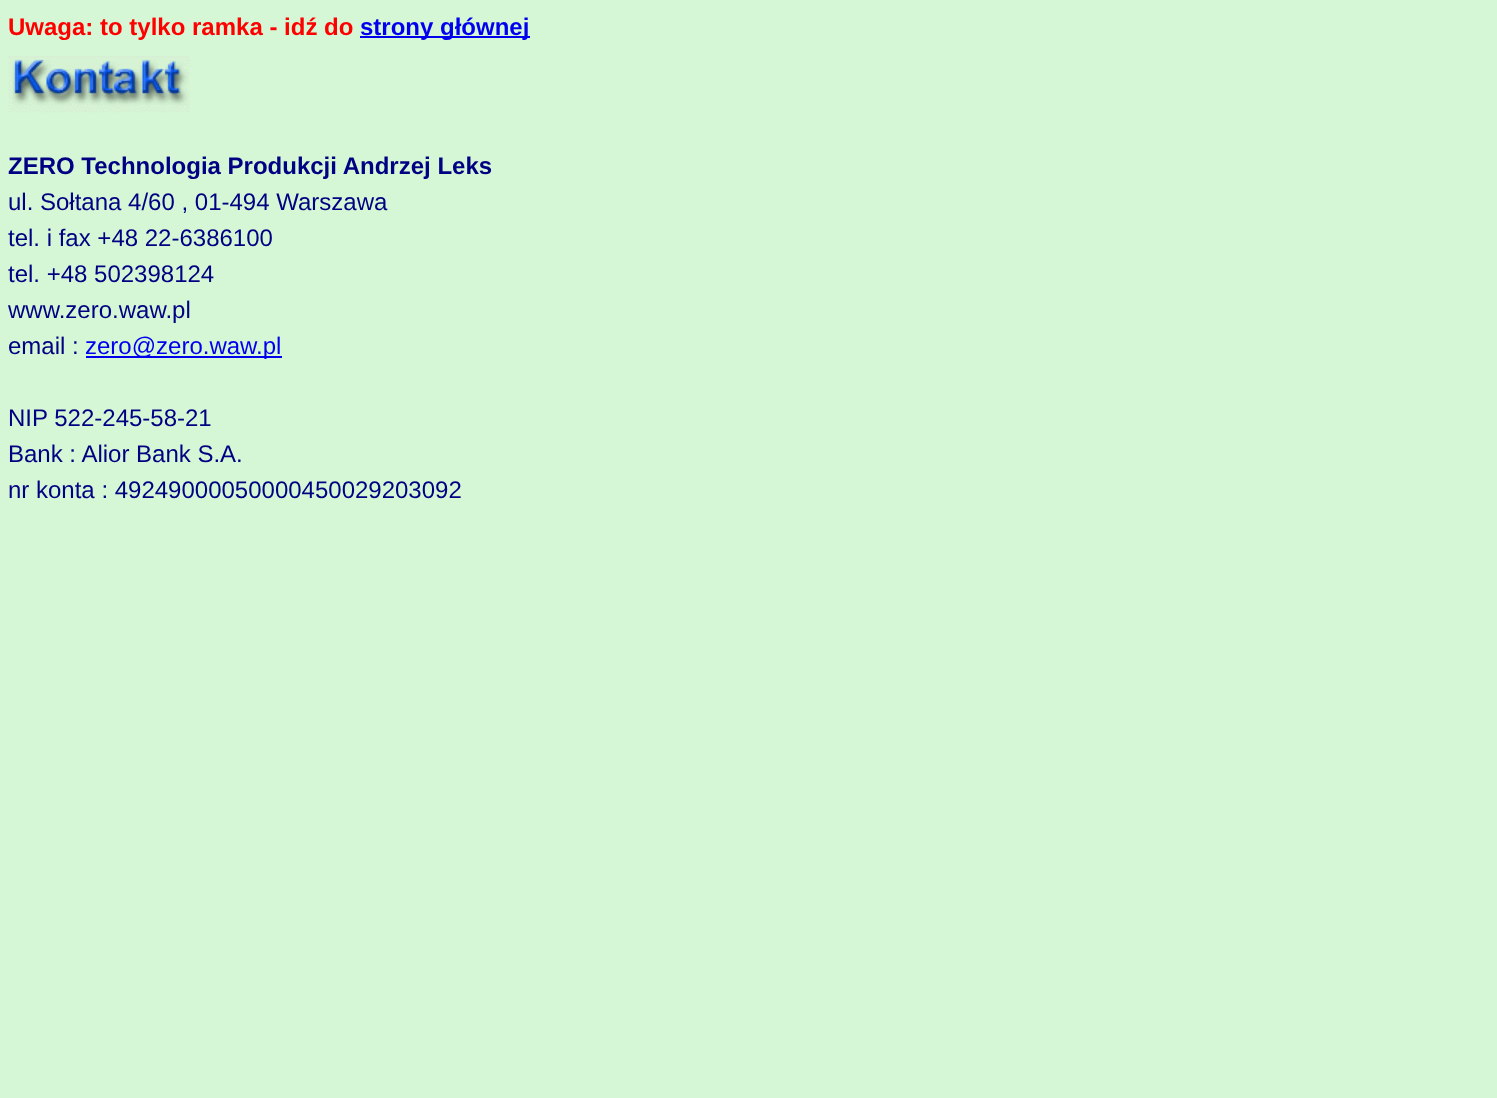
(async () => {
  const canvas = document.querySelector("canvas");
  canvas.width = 1497;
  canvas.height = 1098;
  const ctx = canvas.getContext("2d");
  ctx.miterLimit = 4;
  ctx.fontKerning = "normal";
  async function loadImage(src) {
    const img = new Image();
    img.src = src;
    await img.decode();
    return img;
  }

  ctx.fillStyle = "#d6f7d6";
  ctx.fillRect(0, 0, 1497, 1098);
  ctx.fillStyle = "#0000ee";
  ctx.fillRect(360, 36, 170, 2);
  ctx.drawImage(await loadImage("img/1.png"), 7, 56, 184, 57);
  ctx.fillRect(86, 356, 196, 2);
  ctx.font = "bold 24px Liberation Sans";
  ctx.fillStyle = "#ff0000";
  ctx.fillText("Uwaga: to tylko ramka - idź do", 8, 35);
  ctx.fillStyle = "#0000ee";
  ctx.fillText("strony głównej", 360, 35);
  ctx.fillStyle = "#000082";
  ctx.fillText("ZERO Technologia Produkcji Andrzej Leks", 8, 174);
  ctx.font = "24px Liberation Sans";
  for (const [text, x, y] of [
    ["ul. Sołtana 4/60 , 01-494 Warszawa", 8, 210],
    ["tel. i fax +48 22-6386100", 8, 246],
    ["tel. +48 502398124", 8, 282],
    ["www.zero.waw.pl", 8, 318],
    ["email :", 8, 354],
  ]) {
    ctx.fillText(text, x, y);
  }
  ctx.fillStyle = "#0000ee";
  ctx.fillText("zero@zero.waw.pl", 85, 354);
  ctx.fillStyle = "#000082";
  for (const [text, x, y] of [
    ["NIP 522-245-58-21", 8, 426],
    ["Bank : Alior Bank S.A.", 8, 462],
    ["nr konta : 49249000050000450029203092", 8, 498],
  ]) {
    ctx.fillText(text, x, y);
  }
})();
